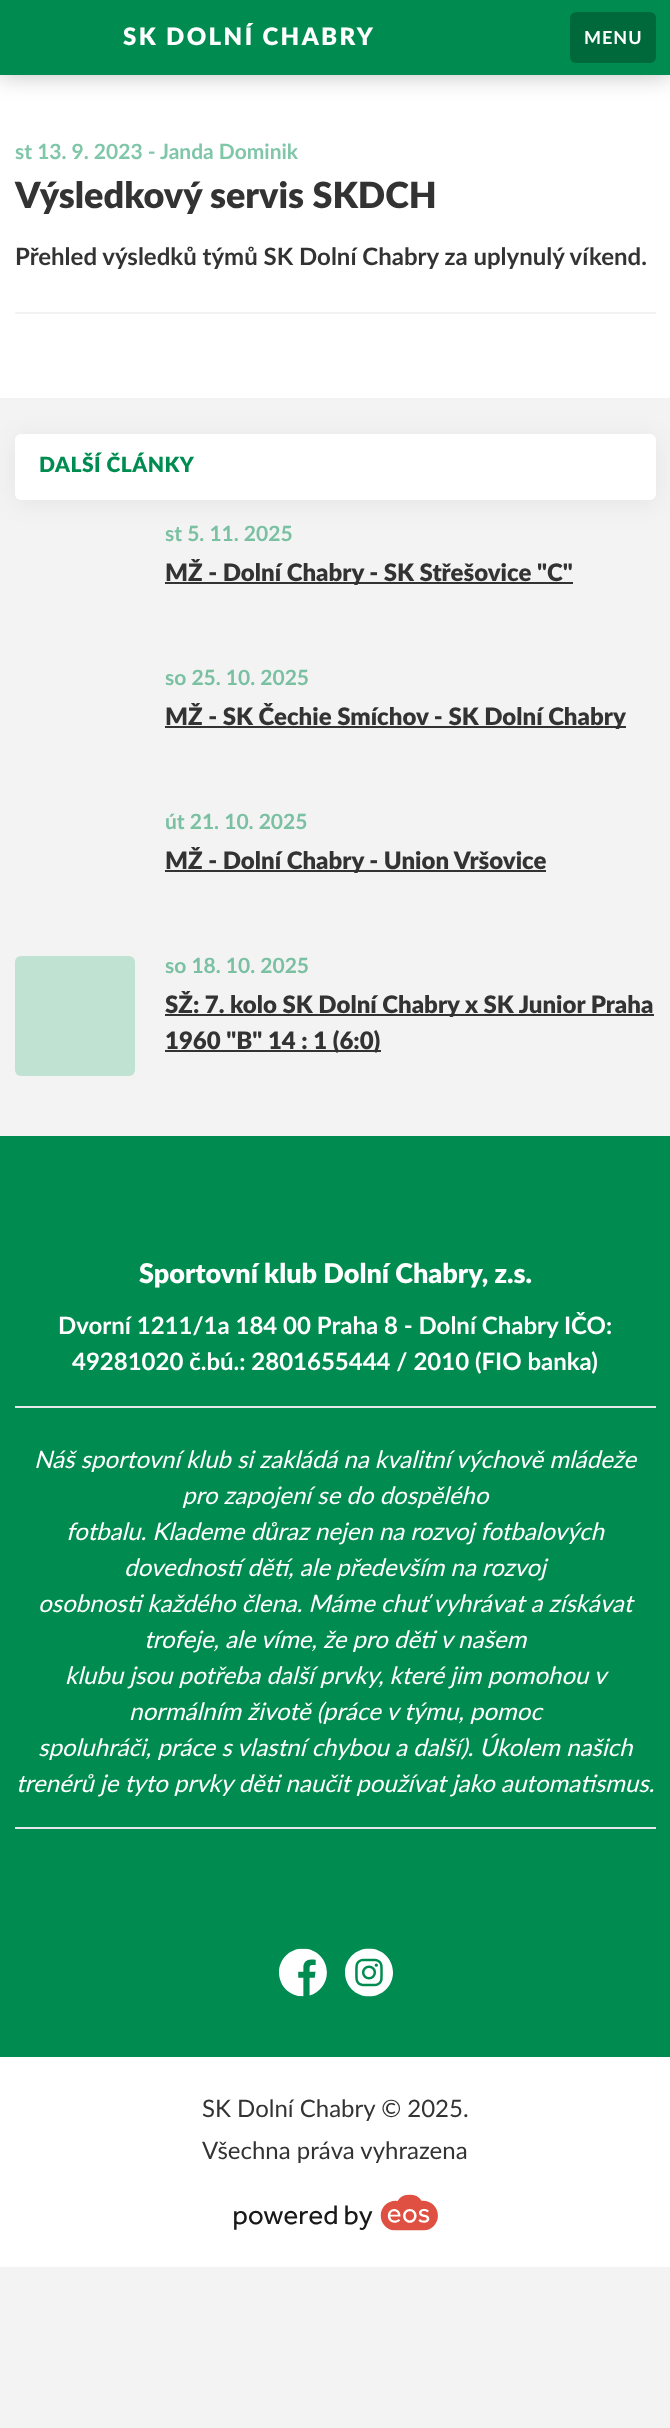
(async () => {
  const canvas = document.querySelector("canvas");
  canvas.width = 670;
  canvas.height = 2428;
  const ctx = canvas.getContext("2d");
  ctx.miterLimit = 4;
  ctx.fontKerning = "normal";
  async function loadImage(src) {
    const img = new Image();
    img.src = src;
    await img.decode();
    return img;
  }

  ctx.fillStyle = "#f3f3f3";
  ctx.fillRect(0, 0, 670, 2428);
  ctx.fillStyle = "#ffffff";
  ctx.fillRect(0, 75, 670, 323);
  ctx.fillStyle = "rgba(0, 0, 0, 0.25)";
  ctx.filter = "blur(12px)";
  ctx.beginPath();
  ctx.rect(0, 0, 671, 75);
  ctx.fill();
  ctx.filter = "none";
  ctx.fillStyle = "#008c50";
  ctx.fillRect(0, 0, 670, 75);
  ctx.fillStyle = "#00693c";
  ctx.beginPath();
  ctx.roundRect(570, 12, 86, 51, 6);
  ctx.fill();
  ctx.fillStyle = "#f3f3f3";
  ctx.fillRect(15, 312, 641, 2);
  ctx.fillStyle = "rgba(0, 0, 0, 0.06)";
  ctx.filter = "blur(12px)";
  ctx.beginPath();
  ctx.roundRect(15, 437, 641, 66, 6);
  ctx.fill();
  ctx.filter = "none";
  ctx.fillStyle = "#ffffff";
  ctx.beginPath();
  ctx.roundRect(15, 434, 641, 66, 6);
  ctx.fill();
  for (const [x, y, w, h, color] of [
    [165, 582, 408, 2, "#333333"],
    [165, 726, 461, 2, "#333333"],
    [165, 870, 381, 2, "#333333"],
  ]) {
    ctx.fillStyle = color;
    ctx.fillRect(x, y, w, h);
  }
  ctx.fillStyle = "#bfe2d3";
  ctx.beginPath();
  ctx.roundRect(15, 956, 120, 120, 6);
  ctx.fill();
  for (const [x, y, w, h, color] of [
    [165, 1014, 489, 2, "#333333"],
    [165, 1050, 216, 2, "#333333"],
    [0, 1136, 670, 921, "#008c50"],
    [15, 1406, 641, 2, "#e5e7eb"],
    [15, 1827, 641, 2, "#e5e7eb"],
  ]) {
    ctx.fillStyle = color;
    ctx.fillRect(x, y, w, h);
  }
  ctx.drawImage(await loadImage("img/1.png"), 279, 1948, 48, 49);
  ctx.drawImage(await loadImage("img/2.png"), 345, 1948, 48, 49);
  ctx.fillStyle = "#ffffff";
  ctx.fillRect(0, 2057, 670, 210);
  ctx.drawImage(await loadImage("img/3.png"), 234, 2194, 204, 37);
  ctx.save();
  ctx.beginPath();
  ctx.rect(123, 23, 447, 30);
  ctx.clip();
  ctx.letterSpacing = "2.4px";
  ctx.font = "900 24px Lato";
  ctx.fillText("SK DOLNÍ CHABRY", 123, 45);
  ctx.restore();
  ctx.letterSpacing = "1px";
  ctx.font = "bold 18px Lato";
  ctx.fillText("MENU", 584, 44);
  ctx.letterSpacing = "0px";
  ctx.font = "bold 21px Lato";
  ctx.fillStyle = "#80c6a8";
  ctx.fillText("st 13. 9. 2023 - Janda Dominik", 15, 159);
  ctx.font = "900 36px Lato";
  ctx.fillStyle = "#333333";
  ctx.fillText("Výsledkový servis SKDCH", 15, 208);
  ctx.font = "bold 24px Lato";
  ctx.fillText("Přehled výsledků týmů SK Dolní Chabry za uplynulý víkend.", 15, 265);
  ctx.letterSpacing = "0.5px";
  ctx.font = "900 21px Lato";
  ctx.fillStyle = "#008c50";
  ctx.fillText("DALŠÍ ČLÁNKY", 39, 472);
  ctx.letterSpacing = "0px";
  ctx.font = "bold 21px Lato";
  ctx.fillStyle = "#7ac0a2";
  ctx.fillText("st 5. 11. 2025", 165, 541);
  ctx.font = "900 24px Lato";
  ctx.fillStyle = "#333333";
  ctx.fillText("MŽ - Dolní Chabry - SK Střešovice \"C\"", 165, 581);
  ctx.font = "bold 21px Lato";
  ctx.fillStyle = "#7ac0a2";
  ctx.fillText("so 25. 10. 2025", 165, 685);
  ctx.font = "900 24px Lato";
  ctx.fillStyle = "#333333";
  ctx.fillText("MŽ - SK Čechie Smíchov - SK Dolní Chabry", 165, 725);
  ctx.font = "bold 21px Lato";
  ctx.fillStyle = "#7ac0a2";
  ctx.fillText("út 21. 10. 2025", 165, 829);
  ctx.font = "900 24px Lato";
  ctx.fillStyle = "#333333";
  ctx.fillText("MŽ - Dolní Chabry - Union Vršovice", 165, 869);
  ctx.font = "bold 21px Lato";
  ctx.fillStyle = "#7ac0a2";
  ctx.fillText("so 18. 10. 2025", 165, 973);
  ctx.font = "900 24px Lato";
  ctx.fillStyle = "#333333";
  ctx.fillText("SŽ: 7. kolo SK Dolní Chabry x SK Junior Praha", 165, 1013);
  ctx.fillText("1960 \"B\" 14 : 1 (6:0)", 165, 1049);
  ctx.font = "900 27px Lato";
  ctx.fillStyle = "#ffffff";
  ctx.fillText("Sportovní klub Dolní Chabry, z.s.", 139, 1283);
  ctx.font = "bold 24px Lato";
  ctx.fillText("Dvorní 1211/1a 184 00 Praha 8 - Dolní Chabry IČO:", 58, 1334);
  ctx.fillText("49281020 č.bú.: 2801655444 / 2010 (FIO banka)", 72, 1370);
  ctx.font = "italic 24px Lato";
  for (const [text, x, y] of [
    ["Náš sportovní klub si zakládá na kvalitní výchově mládeže", 34, 1468],
    ["pro zapojení se do dospělého", 182, 1504],
    ["fotbalu. Klademe důraz nejen na rozvoj fotbalových", 66, 1540],
    ["dovedností dětí, ale především na rozvoj", 124, 1576],
    ["osobnosti každého člena. Máme chuť vyhrávat a získávat", 38, 1612],
    ["trofeje, ale víme, že pro děti v našem", 144, 1648],
    ["klubu jsou potřeba další prvky, které jim pomohou v", 65, 1684],
    ["normálním životě (práce v týmu, pomoc", 129, 1720],
    ["spoluhráči, práce s vlastní chybou a další). Úkolem našich", 38, 1756],
    ["trenérů je tyto prvky děti naučit používat jako automatismus.", 16, 1792],
  ]) {
    ctx.fillText(text, x, y);
  }
  ctx.font = "24px Lato";
  ctx.fillStyle = "#333333";
  ctx.fillText("SK Dolní Chabry © 2025.", 202, 2117);
  ctx.fillText("Všechna práva vyhrazena", 202, 2159);
})();
